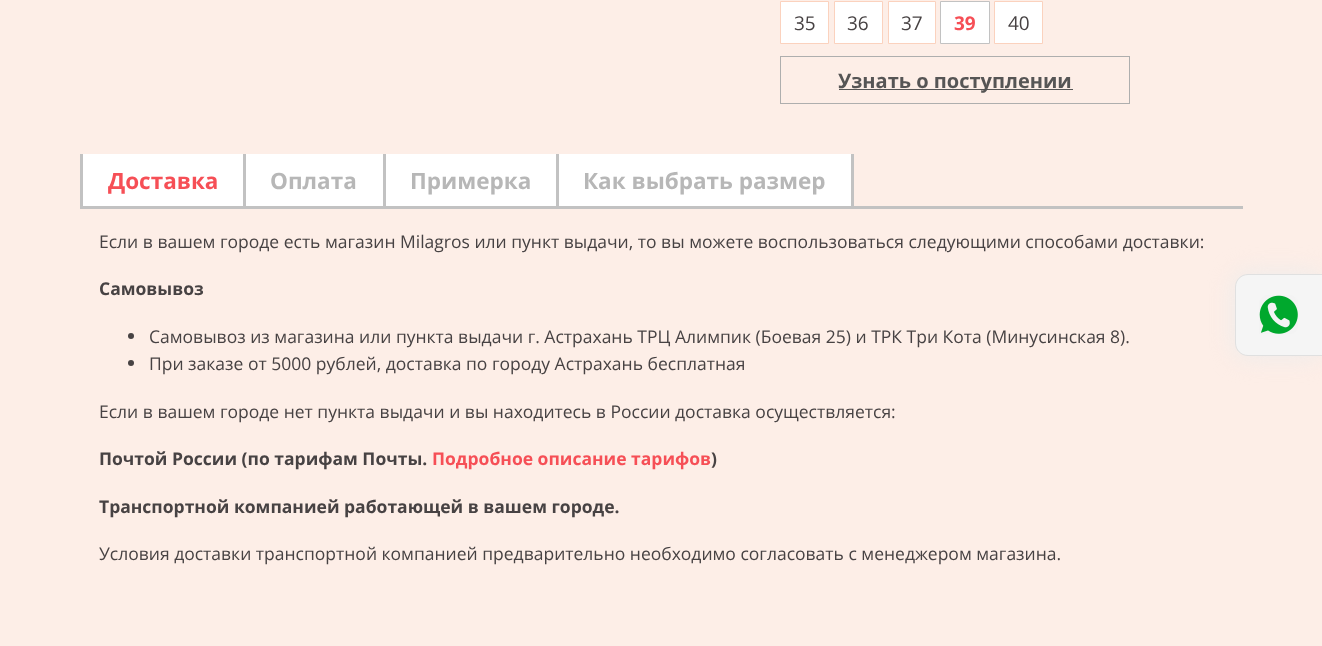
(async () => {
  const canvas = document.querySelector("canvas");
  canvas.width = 1322;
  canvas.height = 646;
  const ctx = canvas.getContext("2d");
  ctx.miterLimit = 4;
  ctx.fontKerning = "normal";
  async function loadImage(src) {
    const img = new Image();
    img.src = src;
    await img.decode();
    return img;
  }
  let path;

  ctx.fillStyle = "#fdeee7";
  ctx.fillRect(0, 0, 1322, 646);
  ctx.fillStyle = "#ffffff";
  ctx.beginPath();
  ctx.rect(780.5, 1.5, 48, 42);
  ctx.fill();
  ctx.strokeStyle = "#fbd2be";
  ctx.stroke();
  ctx.beginPath();
  ctx.rect(834.5, 1.5, 48, 42);
  ctx.fill();
  ctx.stroke();
  ctx.beginPath();
  ctx.rect(888.5, 1.5, 47, 42);
  ctx.fill();
  ctx.stroke();
  ctx.beginPath();
  ctx.rect(940.5, 1.5, 49, 42);
  ctx.fill();
  ctx.strokeStyle = "#c2c2c2";
  ctx.stroke();
  ctx.beginPath();
  ctx.rect(994.5, 1.5, 48, 42);
  ctx.fill();
  ctx.strokeStyle = "#fbd2be";
  ctx.stroke();
  ctx.strokeStyle = "#aeaeae";
  ctx.strokeRect(780.5, 56.5, 349, 47);
  for (const [x, y, w, h, color] of [
    [839, 89, 234, 1, "#565555"],
    [83, 154, 160, 52, "#ffffff"],
    [80, 154, 3, 52, "#c2c2c2"],
    [246, 154, 137, 52, "#ffffff"],
    [243, 154, 3, 52, "#c2c2c2"],
    [386, 154, 170, 52, "#ffffff"],
    [383, 154, 3, 52, "#c2c2c2"],
    [559, 154, 292, 52, "#ffffff"],
    [851, 154, 3, 52, "#c2c2c2"],
    [556, 154, 3, 52, "#c2c2c2"],
    [80, 206, 1163, 3, "#c2c2c2"],
  ]) {
    ctx.fillStyle = color;
    ctx.fillRect(x, y, w, h);
  }
  ctx.fillStyle = "#474243";
  ctx.beginPath();
  ctx.arc(131, 336, 3, 0, Math.PI * 2);
  ctx.fill();
  ctx.beginPath();
  ctx.arc(131, 363, 3, 0, Math.PI * 2);
  ctx.fill();
  ctx.fillStyle = "#ececec";
  ctx.filter = "blur(12px)";
  ctx.beginPath();
  ctx.roundRect(1235, 274, 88, 82, 13);
  ctx.fill();
  ctx.filter = "none";
  ctx.fillStyle = "#f5f5f5";
  path = new Path2D("M1248 274.5H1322.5V355.5H1248C1241 355.5 1235.5 350 1235.5 343V287C1235.5 280 1241 274.5 1248 274.5Z");
  ctx.fill(path);
  ctx.strokeStyle = "#e0e0e0";
  ctx.stroke(path);
  ctx.drawImage(await loadImage("img/1.png"), 1259, 295, 39, 39);
  ctx.font = "19px Open Sans";
  ctx.fillStyle = "#474243";
  for (const [text, x, y] of [
    ["35", 794, 30],
    ["36", 847, 30],
    ["37", 901, 30],
  ]) {
    ctx.fillText(text, x, y);
  }
  ctx.font = "bold 19px Open Sans";
  ctx.fillStyle = "#f64f56";
  ctx.fillText("39", 954, 30);
  ctx.font = "19px Open Sans";
  ctx.fillStyle = "#474243";
  ctx.fillText("40", 1008, 30);
  ctx.font = "bold 20px Open Sans";
  ctx.fillStyle = "#565555";
  ctx.fillText("Узнать о поступлении", 838, 88);
  ctx.font = "bold 22.5px Open Sans";
  ctx.fillStyle = "#f64f56";
  ctx.fillText("Доставка", 108, 189);
  ctx.fillStyle = "#b7b7b7";
  for (const [text, x, y] of [
    ["Оплата", 270, 189],
    ["Примерка", 410, 189],
    ["Как выбрать размер", 583, 189],
  ]) {
    ctx.fillText(text, x, y);
  }
  ctx.font = "17.5px Open Sans";
  ctx.fillStyle = "#474243";
  ctx.fillText("Если в вашем городе есть магазин Milagros или пункт выдачи, то вы можете воспользоваться следующими способами доставки:", 99, 248);
  ctx.font = "bold 17.5px Open Sans";
  ctx.fillText("Самовывоз", 99, 295);
  ctx.font = "17.5px Open Sans";
  for (const [text, x, y] of [
    ["Самовывоз из магазина или пункта выдачи г. Астрахань ТРЦ Алимпик (Боевая 25) и ТРК Три Кота (Минусинская 8).", 149, 343],
    ["При заказе от 5000 рублей, доставка по городу Астрахань бесплатная", 149, 370],
    ["Если в вашем городе нет пункта выдачи и вы находитесь в России доставка осуществляется:", 99, 418],
  ]) {
    ctx.fillText(text, x, y);
  }
  ctx.font = "bold 17.5px Open Sans";
  ctx.fillText("Почтой России (по тарифам Почты.", 99, 465);
  ctx.fillStyle = "#f64f56";
  ctx.fillText("Подробное описание тарифов", 432, 465);
  ctx.fillStyle = "#474243";
  ctx.fillText(")", 711, 465);
  ctx.fillText("Транспортной компанией работающей в вашем городе.", 99, 513);
  ctx.font = "17.5px Open Sans";
  ctx.fillText("Условия доставки транспортной компанией предварительно необходимо согласовать с менеджером магазина.", 99, 560);
})();
